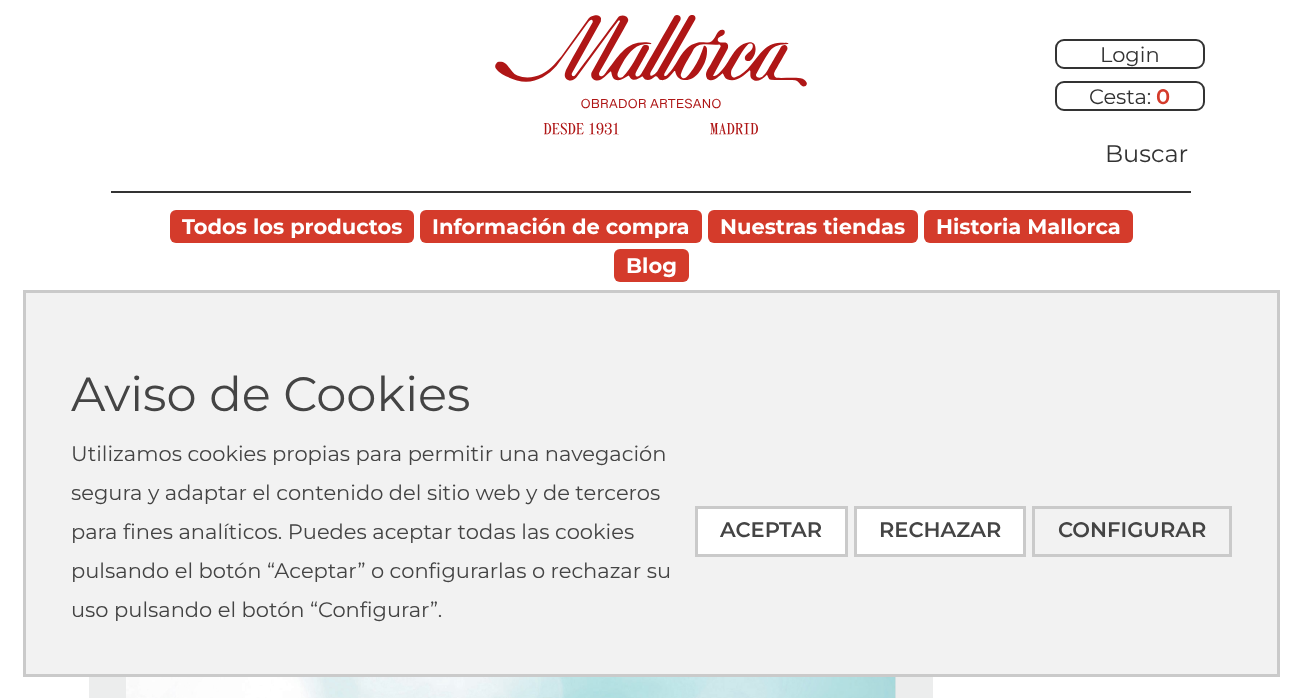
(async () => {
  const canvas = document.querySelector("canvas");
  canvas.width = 1301;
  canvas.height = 698;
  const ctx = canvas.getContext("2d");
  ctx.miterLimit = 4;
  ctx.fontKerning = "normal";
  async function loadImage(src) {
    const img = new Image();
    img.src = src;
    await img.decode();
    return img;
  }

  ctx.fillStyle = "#ffffff";
  ctx.fillRect(0, 0, 1301, 698);
  ctx.drawImage(await loadImage("img/1.png"), 495, 15, 312, 120);
  ctx.beginPath();
  ctx.roundRect(1056, 40, 148, 28, 8);
  ctx.strokeStyle = "#333333";
  ctx.lineWidth = 2;
  ctx.stroke();
  ctx.beginPath();
  ctx.roundRect(1056, 82, 148, 28, 8);
  ctx.stroke();
  ctx.fillStyle = "#333333";
  ctx.fillRect(111, 191, 1080, 2);
  ctx.fillStyle = "#d43b2b";
  ctx.beginPath();
  ctx.roundRect(170, 210, 244, 33, 6);
  ctx.fill();
  ctx.beginPath();
  ctx.roundRect(420, 210, 282, 33, 6);
  ctx.fill();
  ctx.beginPath();
  ctx.roundRect(708, 210, 210, 33, 6);
  ctx.fill();
  ctx.beginPath();
  ctx.roundRect(924, 210, 209, 33, 6);
  ctx.fill();
  ctx.beginPath();
  ctx.roundRect(614, 249, 75, 33, 6);
  ctx.fill();
  ctx.fillStyle = "#f2f2f2";
  ctx.beginPath();
  ctx.rect(24.5, 291.5, 1254, 384);
  ctx.fill();
  ctx.strokeStyle = "#cacaca";
  ctx.lineWidth = 3;
  ctx.stroke();
  ctx.fillStyle = "#ffffff";
  ctx.beginPath();
  ctx.rect(696.5, 507.5, 150, 48);
  ctx.fill();
  ctx.stroke();
  ctx.beginPath();
  ctx.rect(855.5, 507.5, 169, 48);
  ctx.fill();
  ctx.stroke();
  ctx.strokeRect(1033.5, 507.5, 197, 48);
  ctx.fillStyle = "#eceded";
  ctx.fillRect(89, 677, 844, 21);
  ctx.drawImage(await loadImage("img/2.png"), 126, 677, 770, 21);
  ctx.font = "21px Montserrat";
  ctx.fillStyle = "#333333";
  ctx.fillText("Login", 1100, 62);
  ctx.fillText("Cesta:", 1089, 104);
  ctx.font = "600 21px Montserrat";
  ctx.fillStyle = "#d43b2b";
  ctx.fillText("0", 1156, 104);
  ctx.font = "24px Montserrat";
  ctx.fillStyle = "#333333";
  ctx.fillText("Buscar", 1105, 162);
  ctx.font = "bold 21px Montserrat";
  ctx.fillStyle = "#ffffff";
  for (const [text, x, y] of [
    ["Todos los productos", 182, 234],
    ["Información de compra", 432, 234],
    ["Nuestras tiendas", 720, 234],
    ["Historia Mallorca", 936, 234],
    ["Blog", 626, 273],
  ]) {
    ctx.fillText(text, x, y);
  }
  ctx.font = "48px Montserrat";
  ctx.fillStyle = "#444444";
  ctx.fillText("Aviso de Cookies", 71, 411);
  ctx.font = "21px Montserrat";
  for (const [text, x, y] of [
    ["Utilizamos cookies propias para permitir una navegación", 71, 461],
    ["segura y adaptar el contenido del sitio web y de terceros", 71, 500],
    ["para fines analíticos. Puedes aceptar todas las cookies", 71, 539],
    ["pulsando el botón “Aceptar” o configurarlas o rechazar su", 71, 578],
    ["uso pulsando el botón “Configurar”.", 71, 617],
  ]) {
    ctx.fillText(text, x, y);
  }
  ctx.font = "600 21px Montserrat";
  for (const [text, x, y] of [
    ["ACEPTAR", 720, 537],
    ["RECHAZAR", 879, 537],
    ["CONFIGURAR", 1058, 537],
  ]) {
    ctx.fillText(text, x, y);
  }
})();
